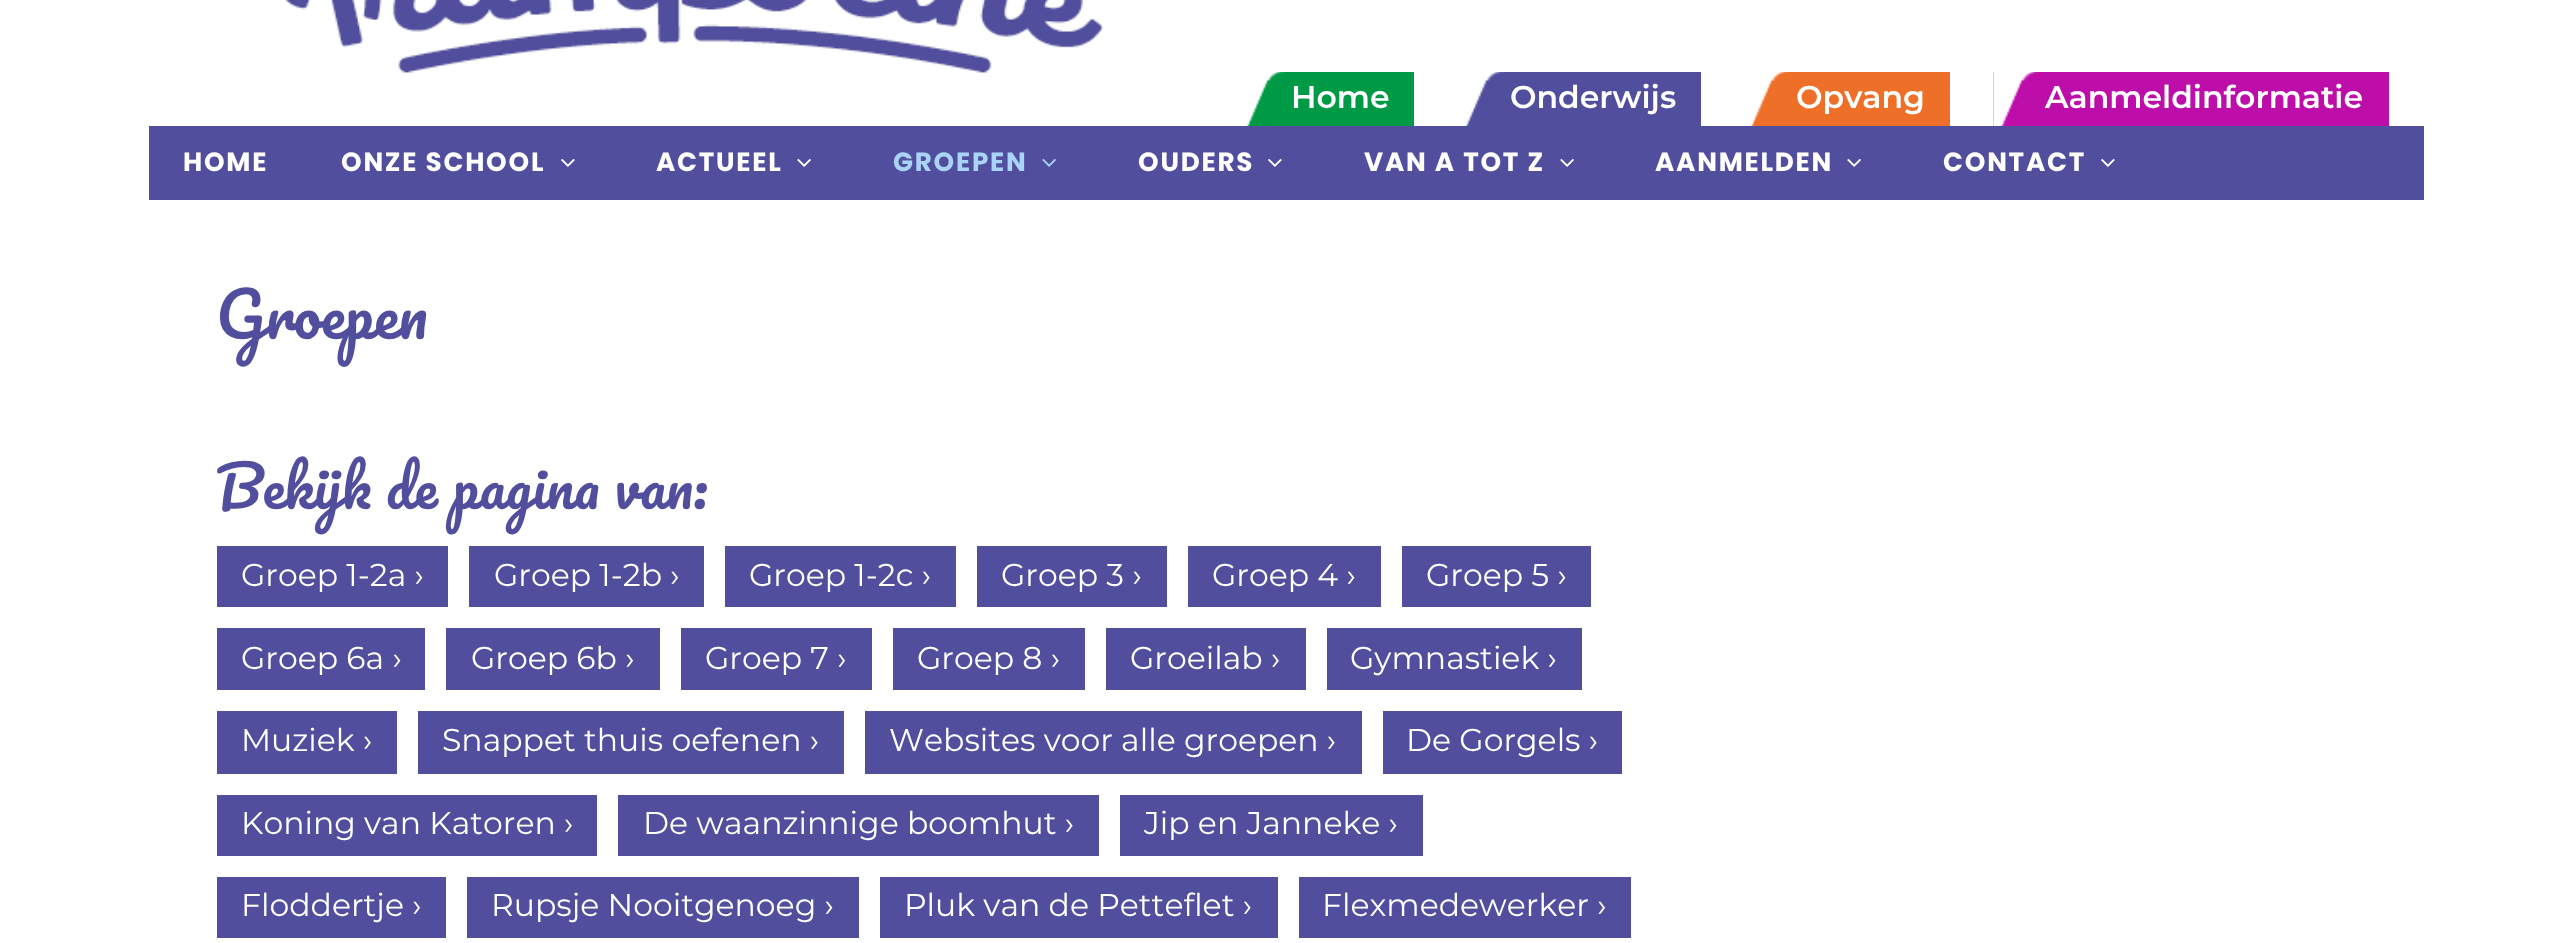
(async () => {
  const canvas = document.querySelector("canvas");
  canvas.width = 2570;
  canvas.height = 943;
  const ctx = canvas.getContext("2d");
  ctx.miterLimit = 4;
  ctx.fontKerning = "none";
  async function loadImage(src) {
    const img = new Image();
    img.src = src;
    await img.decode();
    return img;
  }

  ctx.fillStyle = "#ffffff";
  ctx.fillRect(0, 0, 2570, 943);
  ctx.drawImage(await loadImage("img/1.png"), 285, 0, 819, 73);
  ctx.fillStyle = "#009946";
  ctx.fillRect(1247, 72, 167, 54);
  ctx.drawImage(await loadImage("img/2.png"), 1239, 72, 46, 54);
  ctx.fillStyle = "#514f9d";
  ctx.fillRect(1466, 72, 235, 54);
  ctx.drawImage(await loadImage("img/3.png"), 1458, 72, 46, 54);
  ctx.fillStyle = "#ee7028";
  ctx.fillRect(1751, 72, 199, 54);
  ctx.drawImage(await loadImage("img/4.png"), 1743, 72, 46, 54);
  ctx.fillStyle = "#bd0eaa";
  ctx.fillRect(1993, 72, 396, 54);
  ctx.drawImage(await loadImage("img/5.png"), 1993, 72, 47, 54);
  ctx.fillStyle = "#514f9d";
  ctx.fillRect(149, 126, 2275, 74);
  ctx.drawImage(await loadImage("img/6.png"), 561, 159, 14, 8);
  ctx.drawImage(await loadImage("img/7.png"), 797, 159, 14, 8);
  ctx.drawImage(await loadImage("img/8.png"), 1042, 159, 14, 8);
  ctx.drawImage(await loadImage("img/6.png"), 1268, 159, 14, 8);
  ctx.drawImage(await loadImage("img/7.png"), 1560, 159, 14, 8);
  ctx.drawImage(await loadImage("img/7.png"), 1847, 159, 14, 8);
  ctx.drawImage(await loadImage("img/6.png"), 2101, 159, 14, 8);
  for (const [x, y, w, h, color] of [
    [217, 546, 231, 61, "#514f9d"],
    [469, 546, 235, 61, "#514f9d"],
    [725, 546, 231, 61, "#514f9d"],
    [977, 546, 190, 61, "#514f9d"],
    [1188, 546, 193, 61, "#514f9d"],
    [1402, 546, 189, 61, "#514f9d"],
    [217, 628, 208, 62, "#514f9d"],
    [446, 628, 214, 62, "#514f9d"],
    [681, 628, 191, 62, "#514f9d"],
    [893, 628, 192, 62, "#514f9d"],
    [1106, 628, 200, 62, "#514f9d"],
    [1327, 628, 255, 62, "#514f9d"],
    [217, 711, 180, 63, "#514f9d"],
    [418, 711, 426, 63, "#514f9d"],
    [865, 711, 497, 63, "#514f9d"],
    [1383, 711, 239, 63, "#514f9d"],
    [217, 795, 380, 61, "#514f9d"],
    [618, 795, 481, 61, "#514f9d"],
    [1120, 795, 303, 61, "#514f9d"],
    [217, 877, 229, 61, "#514f9d"],
    [467, 877, 392, 61, "#514f9d"],
    [880, 877, 398, 61, "#514f9d"],
    [1299, 877, 332, 61, "#514f9d"],
  ]) {
    ctx.fillStyle = color;
    ctx.fillRect(x, y, w, h);
  }
  ctx.font = "600 31.5px Montserrat";
  ctx.fillStyle = "#ffffff";
  for (const [text, x, y] of [
    ["Home", 1291, 108],
    ["Onderwijs", 1510, 108],
    ["Opvang", 1796, 108],
    ["Aanmeldinformatie", 2045, 108],
  ]) {
    ctx.fillText(text, x, y);
  }
  ctx.letterSpacing = "1.75px";
  ctx.font = "bold 26.25px Poppins";
  for (const [text, x, y] of [
    ["HOME", 183, 171],
    ["ONZE SCHOOL", 341, 171],
    ["ACTUEEL", 656, 171],
  ]) {
    ctx.fillText(text, x, y);
  }
  ctx.fillStyle = "#a9d3f7";
  ctx.fillText("GROEPEN", 893, 171);
  ctx.fillStyle = "#ffffff";
  for (const [text, x, y] of [
    ["OUDERS", 1138, 171],
    ["VAN A TOT Z", 1364, 171],
    ["AANMELDEN", 1655, 171],
    ["CONTACT", 1943, 171],
  ]) {
    ctx.fillText(text, x, y);
  }
  ctx.letterSpacing = "0px";
  ctx.font = "61px Pacifico";
  ctx.fillStyle = "#514f9d";
  ctx.fillText("Groepen", 216, 339);
  ctx.font = "56px Pacifico";
  ctx.fillText("Bekijk de pagina van:", 216, 509);
  ctx.font = "31.5px Montserrat";
  ctx.fillStyle = "#ffffff";
  for (const [text, x, y] of [
    ["Groep 1-2a ›", 241, 586],
    ["Groep 1-2b ›", 494, 586],
    ["Groep 1-2c ›", 749, 586],
    ["Groep 3 ›", 1001, 586],
    ["Groep 4 ›", 1212, 586],
    ["Groep 5 ›", 1426, 586],
    ["Groep 6a ›", 241, 669],
    ["Groep 6b ›", 471, 669],
    ["Groep 7 ›", 705, 669],
    ["Groep 8 ›", 917, 669],
    ["Groeilab ›", 1130, 669],
    ["Gymnastiek ›", 1350, 669],
    ["Muziek ›", 241, 751],
    ["Snappet thuis oefenen ›", 442, 751],
    ["Websites voor alle groepen ›", 889, 751],
    ["De Gorgels ›", 1406, 751],
    ["Koning van Katoren ›", 241, 834],
    ["De waanzinnige boomhut ›", 643, 834],
    ["Jip en Janneke ›", 1144, 834],
    ["Floddertje ›", 241, 916],
    ["Rupsje Nooitgenoeg ›", 491, 916],
    ["Pluk van de Petteflet ›", 904, 916],
    ["Flexmedewerker ›", 1322, 916],
  ]) {
    ctx.fillText(text, x, y);
  }
})();
